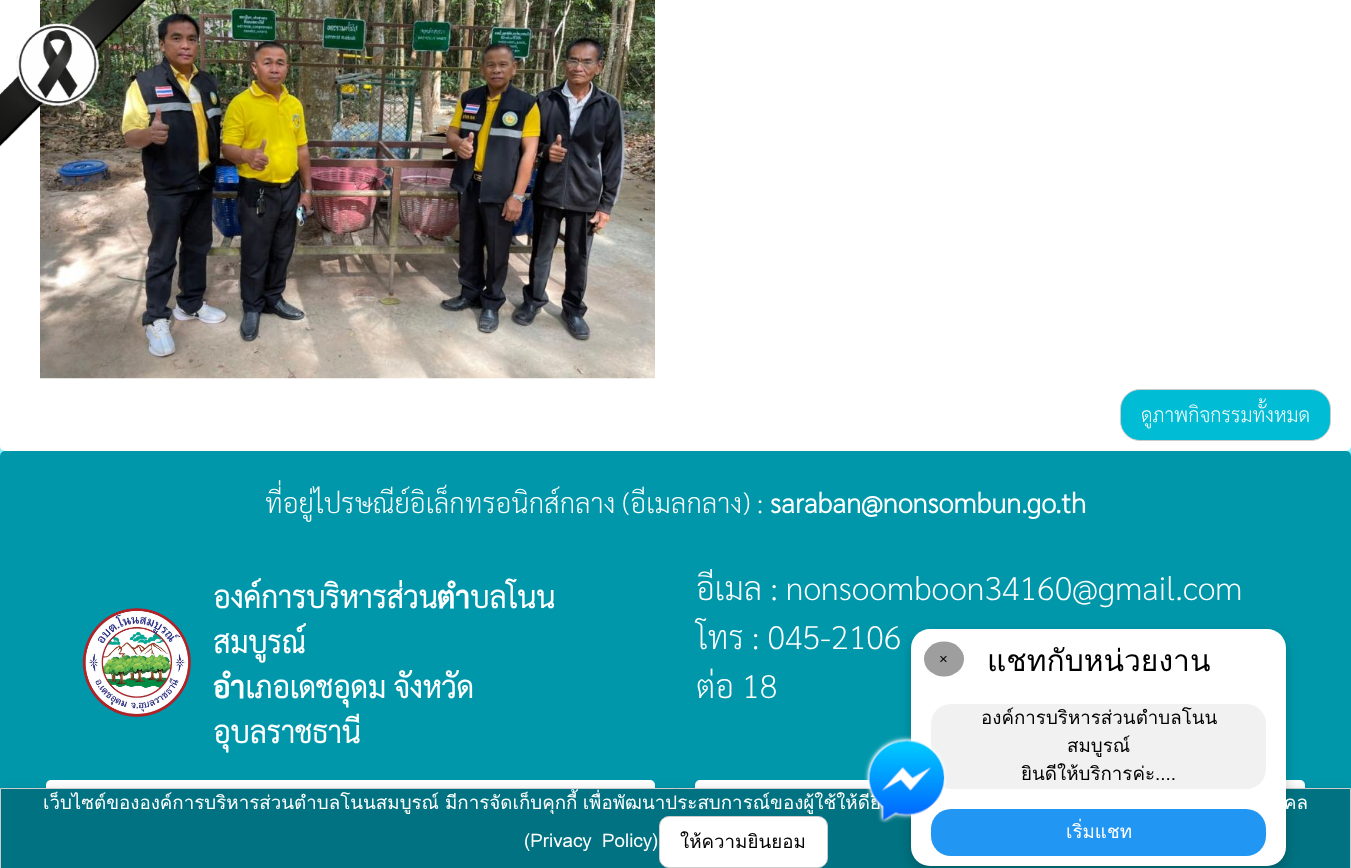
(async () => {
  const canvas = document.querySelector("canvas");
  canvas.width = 1351;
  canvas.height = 868;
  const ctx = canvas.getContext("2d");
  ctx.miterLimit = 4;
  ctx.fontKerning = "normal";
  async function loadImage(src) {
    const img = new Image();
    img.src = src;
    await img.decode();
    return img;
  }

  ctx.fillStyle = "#89f1ff";
  ctx.fillRect(0, 0, 1351, 868);
  ctx.fillStyle = "#ffffff";
  ctx.beginPath();
  ctx.roundRect(0, -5, 1351, 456, 5);
  ctx.fill();
  ctx.drawImage(await loadImage("img/2.png"), 40, 0, 615, 379);
  ctx.drawImage(await loadImage("img/1.png"), 0, 0, 146, 147);
  ctx.fillStyle = "#00bcd4";
  ctx.beginPath();
  ctx.roundRect(1120.5, 389.5, 210, 51, 19.5);
  ctx.fill();
  ctx.strokeStyle = "#cccccc";
  ctx.stroke();
  ctx.fillStyle = "#0097ab";
  ctx.beginPath();
  ctx.roundRect(0, 451, 1351, 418, 5);
  ctx.fill();
  ctx.drawImage(await loadImage("img/3.png"), 82, 608, 109, 109);
  ctx.fillStyle = "#ffffff";
  ctx.beginPath();
  ctx.roundRect(46, 780, 609, 83, 5);
  ctx.fill();
  ctx.beginPath();
  ctx.roundRect(695, 780, 610, 83, 5);
  ctx.fill();
  ctx.fillStyle = "rgba(0, 0, 0, 0.12)";
  ctx.filter = "blur(6px)";
  ctx.beginPath();
  ctx.rect(0, 790, 1351, 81);
  ctx.fill();
  ctx.filter = "none";
  ctx.fillStyle = "#007281";
  ctx.beginPath();
  ctx.rect(0.5, 788.5, 1350, 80);
  ctx.fill();
  ctx.stroke();
  ctx.fillStyle = "rgba(0, 0, 0, 0.2)";
  ctx.filter = "blur(6px)";
  ctx.beginPath();
  ctx.roundRect(911, 634, 375, 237, 19);
  ctx.fill();
  ctx.filter = "none";
  ctx.fillStyle = "#ffffff";
  ctx.beginPath();
  ctx.roundRect(911, 629, 375, 237, 19);
  ctx.fill();
  ctx.fillStyle = "#9e9e9e";
  ctx.beginPath();
  ctx.ellipse(944, 659, 20, 17.5, 0, 0, Math.PI * 2);
  ctx.fill();
  ctx.fillStyle = "#f1f1f1";
  ctx.beginPath();
  ctx.roundRect(931, 704, 335, 85, 20);
  ctx.fill();
  ctx.fillStyle = "#2196f3";
  ctx.beginPath();
  ctx.roundRect(931, 809, 335, 47, 20);
  ctx.fill();
  ctx.fillStyle = "#ffffff";
  ctx.beginPath();
  ctx.roundRect(659.5, 816.5, 168, 51, 9.5);
  ctx.fill();
  ctx.stroke();
  ctx.font = "200 20px Sarabun";
  ctx.fillText("ดูภาพกิจกรรมทั้งหมด", 1141, 422);
  ctx.font = "200 27.5px Sarabun";
  ctx.fillText("ที่อยู่ไปรษณีย์อิเล็กทรอนิกส์กลาง (อีเมลกลาง) :", 265, 513);
  ctx.font = "bold 27.5px Sarabun";
  ctx.fillText("saraban@nonsombun.go.th", 770, 513);
  ctx.font = "bold 30px Sarabun";
  for (const [text, x, y] of [
    ["องค์การบริหารส่วนตำบลโนน", 213, 608],
    ["สมบูรณ์", 213, 653],
    ["อำเภอเดชอุดม จังหวัด", 213, 698],
    ["อุบลราชธานี", 213, 743],
  ]) {
    ctx.fillText(text, x, y);
  }
  ctx.font = "200 32.5px Sarabun";
  for (const [text, x, y] of [
    ["อีเมล : nonsoomboon34160@gmail.com", 696, 600],
    ["โทร : 045-2106", 696, 649],
    ["ต่อ 18", 696, 698],
  ]) {
    ctx.fillText(text, x, y);
  }
  ctx.font = "15px Liberation Sans";
  ctx.fillStyle = "#000000";
  ctx.fillText("×", 939, 664);
  ctx.font = "30px Loma";
  ctx.fillText("แชทกับหน่วยงาน", 987, 671);
  ctx.font = "18.75px Loma";
  for (const [text, x, y] of [
    ["องค์การบริหารส่วนตำบลโนน", 981, 724],
    ["สมบูรณ์", 1067, 752],
    ["ยินดีให้บริการค่ะ....", 1021, 780],
  ]) {
    ctx.fillText(text, x, y);
  }
  ctx.fillStyle = "#ffffff";
  ctx.fillText("เริ่มแชท", 1066, 838);
  ctx.fillText("เว็บไซต์ขององค์การบริหารส่วนตำบลโนนสมบูรณ์", 43, 809);
  ctx.wordSpacing = "-1px";
  ctx.fillText("มีการจัดเก็บคุกกี้ เพื่อพัฒนาประสบการณ์ของผู้ใช้ให้ดียิ่", 445, 809);
  ctx.drawImage(await loadImage("img/4.png"), 864, 735, 82, 88);
  ctx.fillText("คล", 1284, 809);
  ctx.wordSpacing = "4px";
  ctx.fillText("(Privacy Policy)", 524, 847);
  ctx.wordSpacing = "0px";
  ctx.fillStyle = "#000000";
  ctx.fillText("ให้ความยินยอม", 680, 848);
})();
